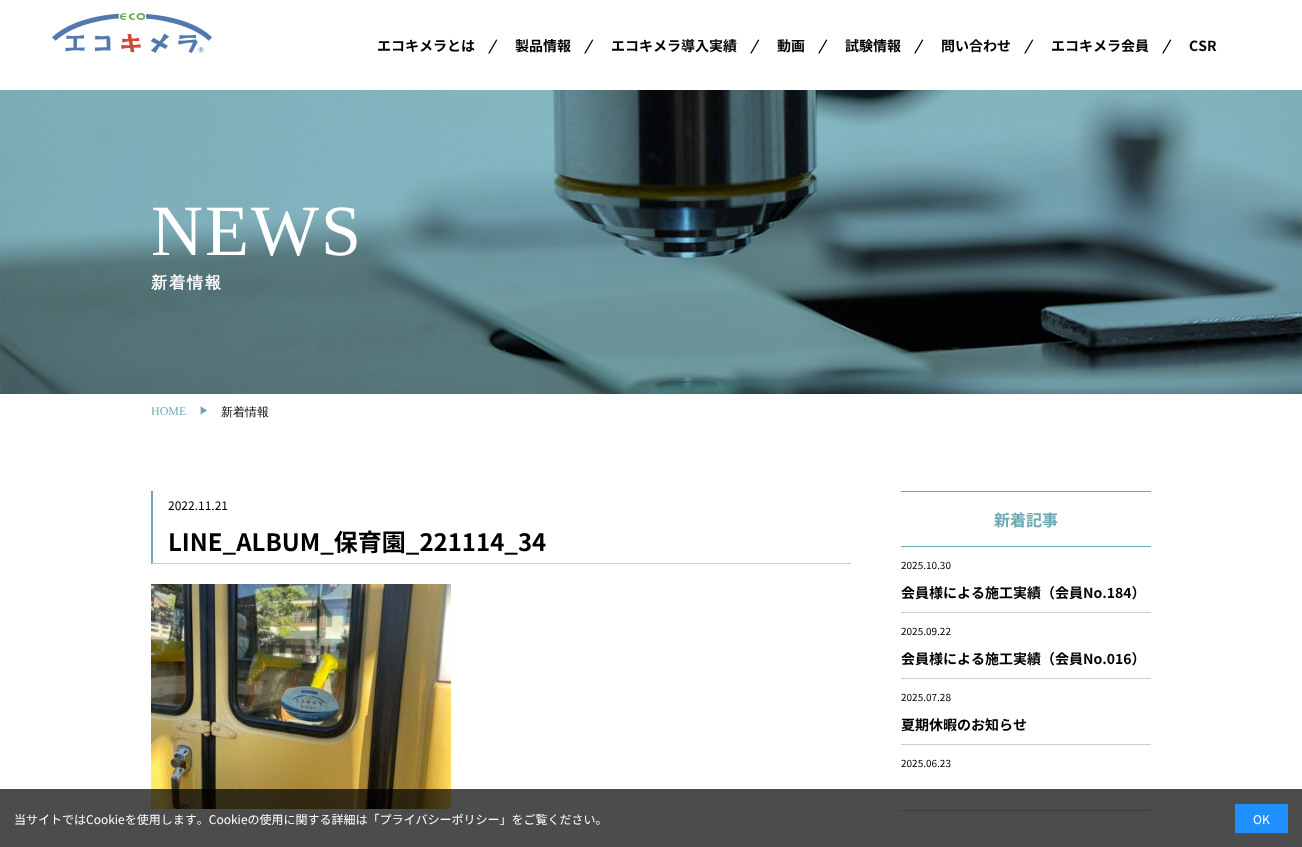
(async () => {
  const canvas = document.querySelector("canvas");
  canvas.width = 1302;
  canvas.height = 847;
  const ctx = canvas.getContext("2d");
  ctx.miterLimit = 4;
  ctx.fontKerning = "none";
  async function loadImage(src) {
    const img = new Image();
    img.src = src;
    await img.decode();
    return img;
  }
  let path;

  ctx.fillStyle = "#ffffff";
  ctx.fillRect(0, 0, 1302, 847);
  ctx.drawImage(await loadImage("img/1.png"), 52, 13, 160, 40);
  ctx.drawImage(await loadImage("img/2.png"), 0, 90, 1302, 304);
  ctx.fillStyle = "#cccccc";
  path = new Path2D("M851 564H151L153 563H851Z");
  ctx.fill(path);
  ctx.fillStyle = "#6ea8b2";
  path = new Path2D("M151 564V491H153V563Z");
  ctx.fill(path);
  ctx.drawImage(await loadImage("img/3.png"), 151, 584, 300, 225);
  for (const [x, y, w, h, color] of [
    [901, 491, 250, 1, "#6ea8b2"],
    [901, 546, 250, 1, "#6ea8b2"],
    [901, 612, 250, 1, "#cccccc"],
    [901, 678, 250, 1, "#cccccc"],
    [901, 744, 250, 1, "#cccccc"],
    [901, 810, 250, 1, "#cccccc"],
    [0, 789, 1302, 58, "rgba(0, 0, 0, 0.7)"],
    [1235, 804, 53, 29, "#1e90ff"],
  ]) {
    ctx.fillStyle = color;
    ctx.fillRect(x, y, w, h);
  }
  ctx.font = "bold 14px Noto Sans JP";
  ctx.fillStyle = "#000000";
  ctx.fillText("エコキメラとは", 377, 51);
  ctx.save();
  ctx.translate(489, 49);
  ctx.rotate(30 * Math.PI / 180);
  ctx.fillText("|", 0, 0);
  ctx.restore();
  ctx.fillText("製品情報", 515, 51);
  ctx.save();
  ctx.translate(585, 49);
  ctx.rotate(30 * Math.PI / 180);
  ctx.fillText("|", 0, 0);
  ctx.restore();
  ctx.fillText("エコキメラ導入実績", 611, 51);
  ctx.save();
  ctx.translate(751, 49);
  ctx.rotate(30 * Math.PI / 180);
  ctx.fillText("|", 0, 0);
  ctx.restore();
  ctx.fillText("動画", 777, 51);
  ctx.save();
  ctx.translate(819, 49);
  ctx.rotate(30 * Math.PI / 180);
  ctx.fillText("|", 0, 0);
  ctx.restore();
  ctx.fillText("試験情報", 845, 51);
  ctx.save();
  ctx.translate(915, 49);
  ctx.rotate(30 * Math.PI / 180);
  ctx.fillText("|", 0, 0);
  ctx.restore();
  ctx.fillText("問い合わせ", 941, 51);
  ctx.save();
  ctx.translate(1025, 49);
  ctx.rotate(30 * Math.PI / 180);
  ctx.fillText("|", 0, 0);
  ctx.restore();
  ctx.fillText("エコキメラ会員", 1051, 51);
  ctx.save();
  ctx.translate(1163, 49);
  ctx.rotate(30 * Math.PI / 180);
  ctx.fillText("|", 0, 0);
  ctx.restore();
  ctx.fillText("CSR", 1189, 51);
  ctx.letterSpacing = "2px";
  ctx.font = "72px Liberation Serif";
  ctx.fillStyle = "#ffffff";
  ctx.fillText("NEWS", 151, 255);
  ctx.font = "bold 16px WenQuanYi Zen Hei";
  ctx.fillText("新着情報", 151, 288);
  ctx.letterSpacing = "0px";
  ctx.font = "12px Liberation Serif";
  ctx.fillStyle = "#6ea8b2";
  ctx.fillText("HOME", 151, 415);
  ctx.font = "500 10px WenQuanYi Zen Hei";
  ctx.fillText("▶︎", 199, 414);
  ctx.font = "500 12px WenQuanYi Zen Hei";
  ctx.fillStyle = "#000000";
  ctx.fillText("新着情報", 221, 416);
  ctx.font = "12px Noto Sans JP";
  ctx.fillText("2022.11.21", 168, 510);
  ctx.font = "bold 24px Noto Sans JP";
  ctx.fillText("LINE_ALBUM_保育園_221114_34", 168, 551);
  ctx.font = "bold 16px Noto Sans JP";
  ctx.fillStyle = "#6ea8b2";
  ctx.fillText("新着記事", 994, 526);
  ctx.font = "10px Noto Sans JP";
  ctx.fillStyle = "#000000";
  ctx.fillText("2025.10.30", 901, 569);
  ctx.font = "bold 14px Noto Sans JP";
  ctx.fillText("会員様による施工実績（会員No.184）", 901, 598);
  ctx.font = "10px Noto Sans JP";
  ctx.fillText("2025.09.22", 901, 635);
  ctx.font = "bold 14px Noto Sans JP";
  ctx.fillText("会員様による施工実績（会員No.016）", 901, 664);
  ctx.font = "10px Noto Sans JP";
  ctx.fillText("2025.07.28", 901, 701);
  ctx.font = "bold 14px Noto Sans JP";
  ctx.fillText("夏期休暇のお知らせ", 901, 730);
  ctx.font = "10px Noto Sans JP";
  ctx.fillText("2025.06.23", 901, 767);
  ctx.font = "12px Noto Sans JP";
  ctx.fillStyle = "#ffffff";
  ctx.fillText("当サイトではCookieを使用します。Cookieの使用に関する詳細は「プライバシーポリシー」をご覧ください。", 14, 824);
  ctx.fillText("OK", 1253, 824);
})();
